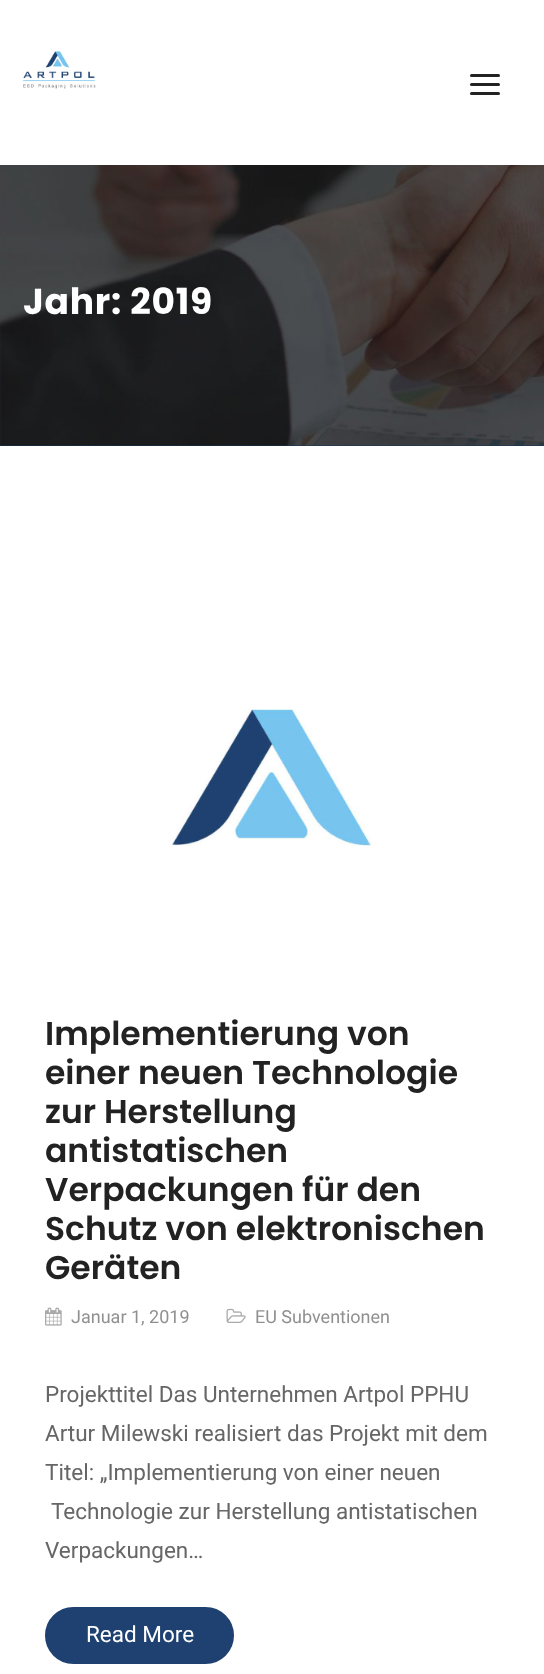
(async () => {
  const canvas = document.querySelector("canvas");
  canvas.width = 544;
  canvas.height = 1674;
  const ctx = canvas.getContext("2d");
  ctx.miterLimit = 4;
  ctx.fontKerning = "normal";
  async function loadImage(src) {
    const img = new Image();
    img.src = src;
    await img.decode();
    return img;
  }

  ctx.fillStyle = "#ffffff";
  ctx.fillRect(0, 0, 544, 1674);
  ctx.drawImage(await loadImage("img/1.png"), 22, 51, 74, 38);
  ctx.fillStyle = "#222222";
  ctx.beginPath();
  ctx.roundRect(470, 74, 30, 3, 1.5);
  ctx.fill();
  ctx.beginPath();
  ctx.roundRect(470, 83, 30, 3, 1.5);
  ctx.fill();
  ctx.beginPath();
  ctx.roundRect(470, 92, 30, 3, 1.5);
  ctx.fill();
  ctx.fillStyle = "#19345a";
  ctx.fillRect(0, 445, 544, 1);
  ctx.drawImage(await loadImage("img/2.png"), 0, 165, 544, 281);
  ctx.drawImage(await loadImage("img/3.png"), 169, 709, 202, 137);
  ctx.drawImage(await loadImage("img/4.png"), 45, 1307, 17, 19);
  ctx.drawImage(await loadImage("img/5.png"), 226, 1308, 20, 15);
  ctx.fillStyle = "#1f4171";
  ctx.beginPath();
  ctx.roundRect(46.5, 1608.5, 186, 54, 27);
  ctx.fill();
  ctx.strokeStyle = "#1f4171";
  ctx.lineWidth = 3;
  ctx.stroke();
  ctx.letterSpacing = "0.75px";
  ctx.font = "bold 36px Poppins";
  ctx.fillStyle = "#ffffff";
  ctx.fillText("Jahr: 2019", 23, 314);
  ctx.letterSpacing = "0px";
  ctx.font = "600 33px Poppins";
  ctx.fillStyle = "#222222";
  for (const [text, x, y] of [
    ["Implementierung von", 45, 1045],
    ["einer neuen Technologie", 45, 1084],
    ["zur Herstellung", 45, 1123],
    ["antistatischen", 45, 1162],
    ["Verpackungen für den", 45, 1201],
    ["Schutz von elektronischen", 45, 1240],
    ["Geräten", 45, 1279],
  ]) {
    ctx.fillText(text, x, y);
  }
  ctx.font = "18px Roboto";
  ctx.fillStyle = "#909090";
  ctx.fillText("Januar 1, 2019", 71, 1323);
  ctx.fillText("EU Subventionen", 255, 1323);
  ctx.font = "22.5px Roboto";
  ctx.fillStyle = "#666666";
  for (const [text, x, y] of [
    ["Projekttitel Das Unternehmen Artpol PPHU", 45, 1402],
    ["Artur Milewski realisiert das Projekt mit dem", 45, 1441],
    ["Titel: „Implementierung von einer neuen", 45, 1480],
    ["Technologie zur Herstellung antistatischen", 51, 1519],
    ["Verpackungen…", 45, 1558],
  ]) {
    ctx.fillText(text, x, y);
  }
  ctx.fillStyle = "#ffffff";
  ctx.fillText("Read More", 86, 1642);
})();
